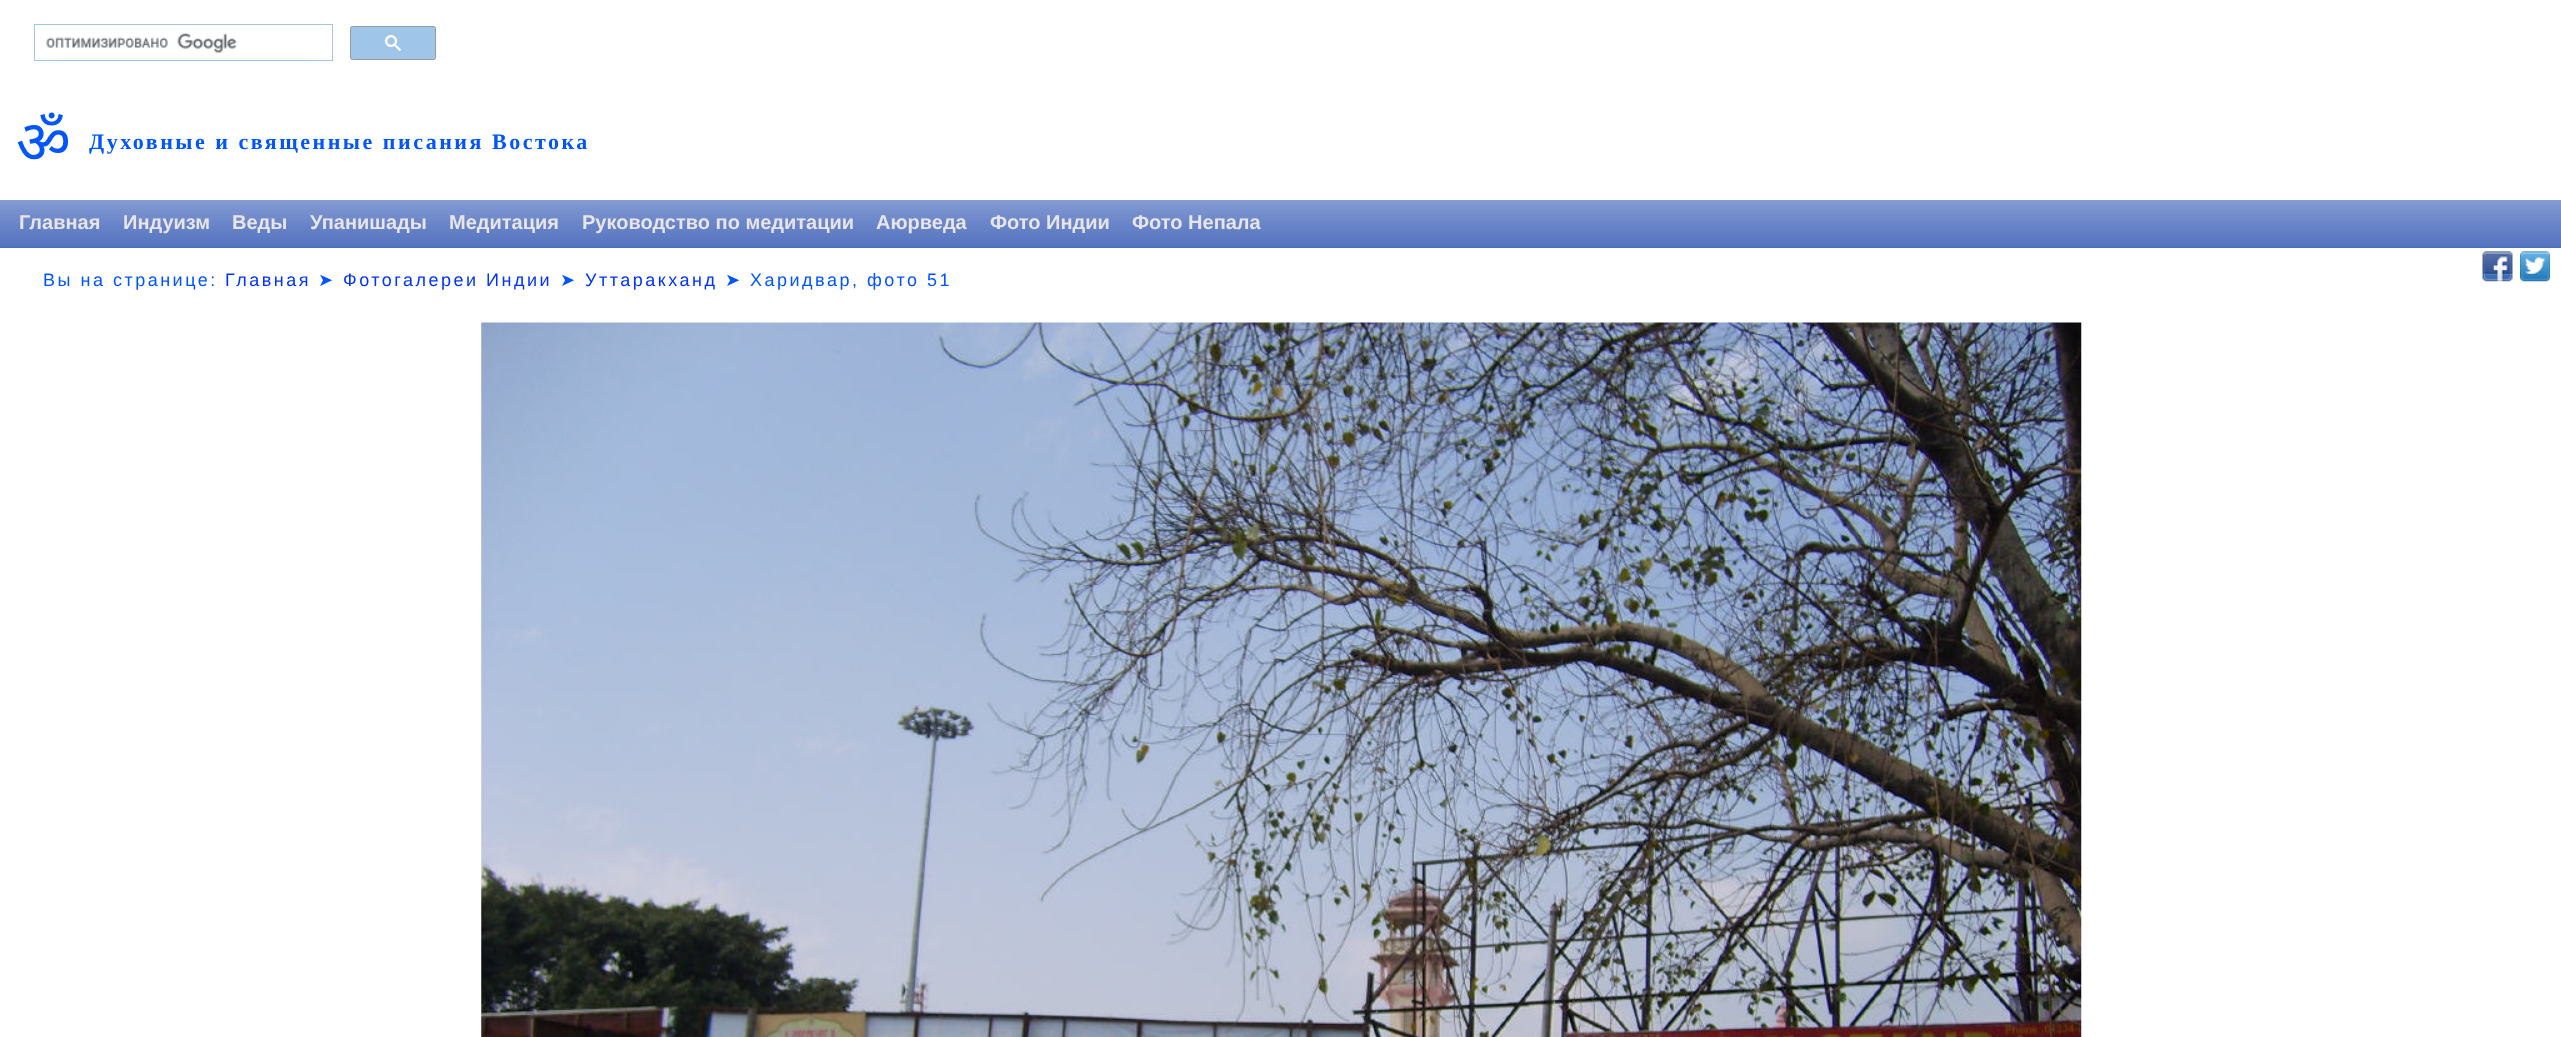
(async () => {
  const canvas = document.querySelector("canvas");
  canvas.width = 2561;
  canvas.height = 1037;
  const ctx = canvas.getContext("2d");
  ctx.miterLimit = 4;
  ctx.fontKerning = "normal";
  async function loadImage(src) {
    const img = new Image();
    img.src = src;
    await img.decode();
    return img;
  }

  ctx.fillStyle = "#ffffff";
  ctx.fillRect(0, 0, 2561, 1037);
  ctx.strokeStyle = "#9fc5e8";
  ctx.strokeRect(34.5, 24.5, 298, 36);
  ctx.drawImage(await loadImage("img/1.png"), 46, 33, 191, 20);
  ctx.fillStyle = "#9fc5e8";
  ctx.beginPath();
  ctx.roundRect(350.5, 26.5, 85, 33, 2);
  ctx.fill();
  ctx.strokeStyle = "#999999";
  ctx.stroke();
  ctx.drawImage(await loadImage("img/2.png"), 385, 35, 16, 16);
  ctx.fillStyle = "#4466bb";
  ctx.fillRect(0, 200, 2561, 48);
  ctx.drawImage(await loadImage("img/3.png"), 0, 200, 2561, 48);
  ctx.drawImage(await loadImage("img/4.png"), 2482, 251, 31, 31);
  ctx.drawImage(await loadImage("img/5.png"), 2520, 251, 30, 31);
  ctx.drawImage(await loadImage("img/6.png"), 481, 322, 1601, 715);
  ctx.letterSpacing = "2.5px";
  ctx.font = "60px Noto Sans";
  ctx.fillStyle = "#0055ff";
  ctx.fillText("ॐ", 16, 163);
  ctx.font = "bold 22px Liberation Serif";
  ctx.fillText("Духовные и священные писания Востока", 89, 149);
  ctx.letterSpacing = "0px";
  ctx.font = "bold 20px Liberation Sans";
  ctx.fillStyle = "#e7e5e5";
  for (const [text, x, y] of [
    ["Главная", 19, 229],
    ["Индуизм", 123, 229],
    ["Веды", 232, 229],
    ["Упанишады", 310, 229],
    ["Медитация", 449, 229],
    ["Руководство по медитации", 582, 229],
    ["Аюрведа", 876, 229],
    ["Фото Индии", 990, 229],
    ["Фото Непала", 1132, 229],
  ]) {
    ctx.fillText(text, x, y);
  }
  ctx.letterSpacing = "2.5px";
  ctx.font = "18px Liberation Sans";
  ctx.fillStyle = "#0055ff";
  ctx.fillText("Вы на странице:", 43, 286);
  ctx.fillStyle = "#0033ff";
  ctx.fillText("Главная", 225, 286);
  ctx.font = "18px DejaVu Sans";
  ctx.fillStyle = "#0055ff";
  ctx.fillText("➤", 318, 286);
  ctx.font = "18px Liberation Sans";
  ctx.fillStyle = "#0033ff";
  ctx.fillText("Фотогалереи Индии", 343, 286);
  ctx.font = "18px DejaVu Sans";
  ctx.fillStyle = "#0055ff";
  ctx.fillText("➤", 560, 286);
  ctx.font = "18px Liberation Sans";
  ctx.fillStyle = "#0033ff";
  ctx.fillText("Уттаракханд", 585, 286);
  ctx.font = "18px DejaVu Sans";
  ctx.fillStyle = "#0055ff";
  ctx.fillText("➤", 725, 286);
  ctx.font = "18px Liberation Sans";
  ctx.fillText("Харидвар, фото 51", 750, 286);
})();
